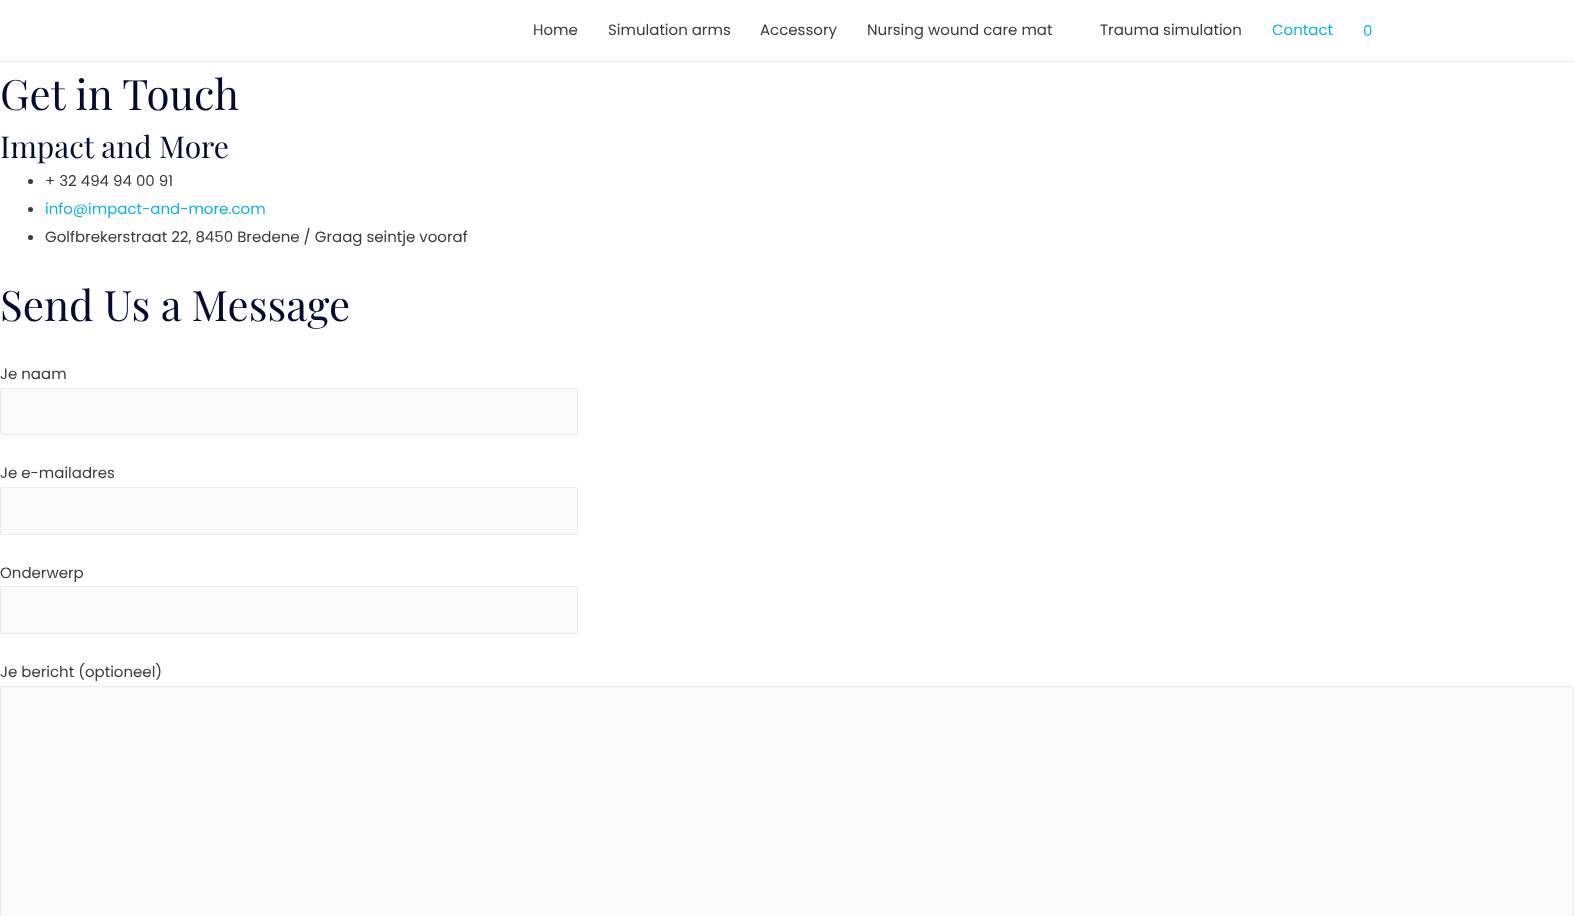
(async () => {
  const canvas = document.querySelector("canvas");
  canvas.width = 1574;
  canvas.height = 916;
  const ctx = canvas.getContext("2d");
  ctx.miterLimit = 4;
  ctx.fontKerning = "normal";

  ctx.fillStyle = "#ffffff";
  ctx.fillRect(0, 0, 1574, 916);
  ctx.fillStyle = "#eaeaea";
  ctx.fillRect(0, 61, 1574, 1);
  ctx.fillStyle = "#3a3a3a";
  ctx.beginPath();
  ctx.arc(30.5, 181.5, 2.5, 0, Math.PI * 2);
  ctx.fill();
  ctx.beginPath();
  ctx.arc(30.5, 209.5, 2.5, 0, Math.PI * 2);
  ctx.fill();
  ctx.beginPath();
  ctx.arc(30.5, 237.5, 2.5, 0, Math.PI * 2);
  ctx.fill();
  ctx.fillStyle = "#fafafa";
  ctx.beginPath();
  ctx.roundRect(0.5, 388.5, 577, 46, 1.5);
  ctx.fill();
  ctx.strokeStyle = "#eaeaea";
  ctx.stroke();
  ctx.beginPath();
  ctx.roundRect(0.5, 487.5, 577, 47, 1.5);
  ctx.fill();
  ctx.stroke();
  ctx.beginPath();
  ctx.roundRect(0.5, 586.5, 577, 47, 1.5);
  ctx.fill();
  ctx.stroke();
  ctx.beginPath();
  ctx.roundRect(0.5, 686.5, 1573, 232, 1.5);
  ctx.fill();
  ctx.stroke();
  ctx.font = "15px Poppins";
  ctx.fillStyle = "#3a3a3a";
  for (const [text, x, y] of [
    ["Home", 533, 35],
    ["Simulation arms", 608, 35],
    ["Accessory", 760, 35],
    ["Nursing wound care mat", 867, 35],
    ["Trauma simulation", 1100, 35],
  ]) {
    ctx.fillText(text, x, y);
  }
  ctx.fillStyle = "#0eb2e7";
  ctx.fillText("Contact", 1272, 35);
  ctx.fillText("0", 1363, 36);
  ctx.font = "42px Playfair Display";
  ctx.fillStyle = "#000c30";
  ctx.fillText("Get in Touch", 0, 110);
  ctx.font = "30px Playfair Display";
  ctx.fillText("Impact and More", 0, 158);
  ctx.font = "15px Poppins";
  ctx.fillStyle = "#3a3a3a";
  ctx.fillText("+ 32 494 94 00 91", 45, 186);
  ctx.fillStyle = "#0eb2e7";
  ctx.fillText("info@impact-and-more.com", 45, 214);
  ctx.fillStyle = "#3a3a3a";
  ctx.fillText("Golfbrekerstraat 22, 8450 Bredene / Graag seintje vooraf", 45, 242);
  ctx.font = "42px Playfair Display";
  ctx.fillStyle = "#000c30";
  ctx.fillText("Send Us a Message", 0, 321);
  ctx.font = "15px Poppins";
  ctx.fillStyle = "#3a3a3a";
  for (const [text, x, y] of [
    ["Je naam", 0, 379],
    ["Je e-mailadres", 0, 478],
    ["Onderwerp", 0, 578],
    ["Je bericht (optioneel)", 0, 677],
  ]) {
    ctx.fillText(text, x, y);
  }
})();
